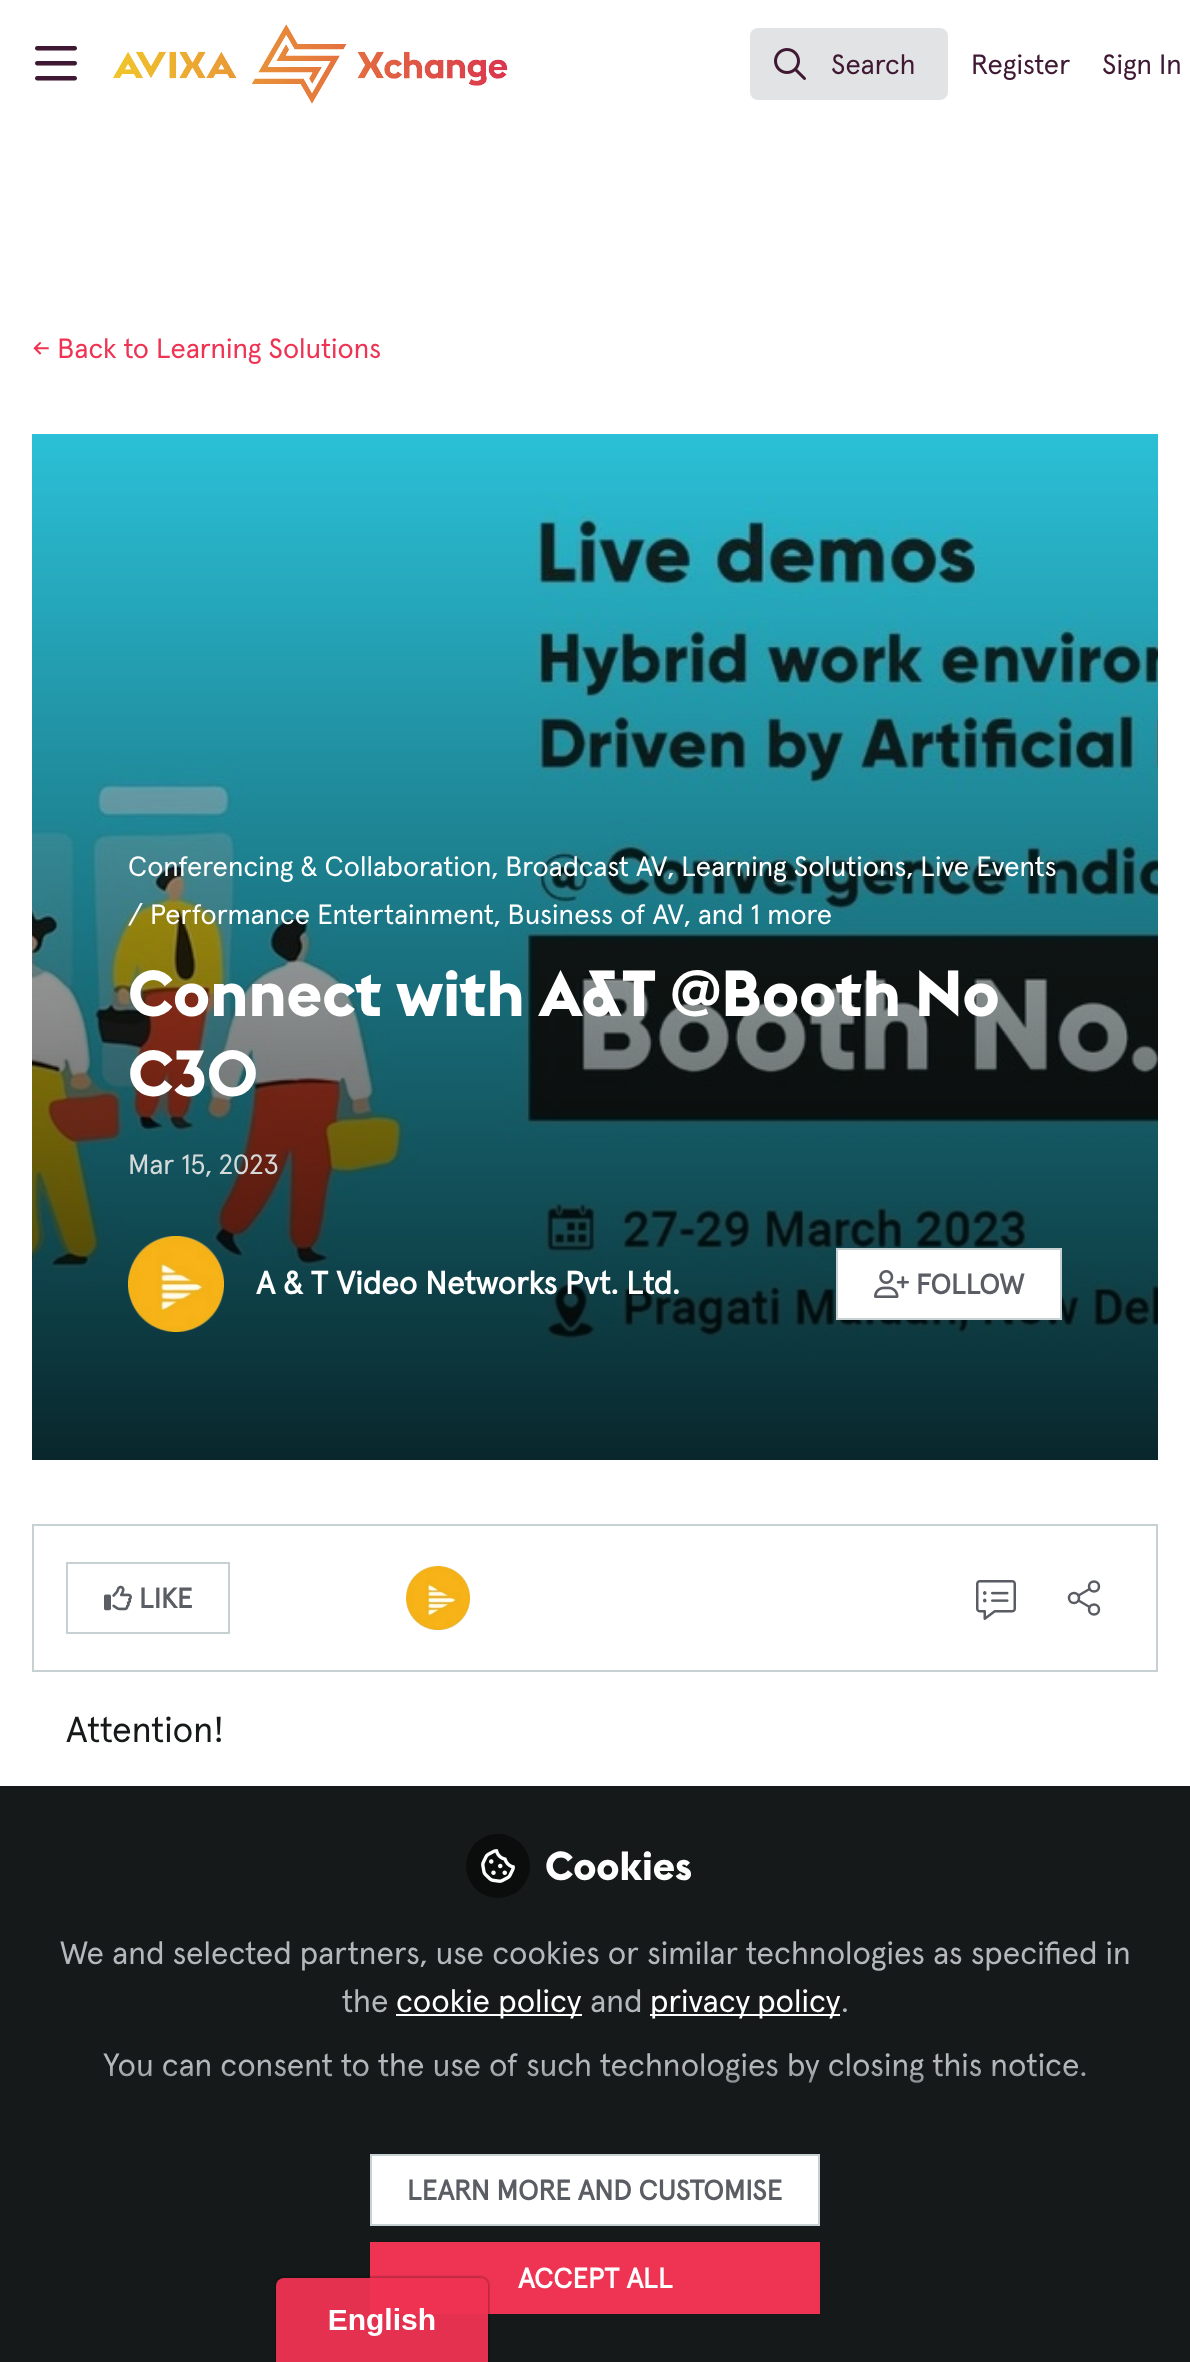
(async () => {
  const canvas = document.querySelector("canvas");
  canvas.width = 1190;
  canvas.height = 2362;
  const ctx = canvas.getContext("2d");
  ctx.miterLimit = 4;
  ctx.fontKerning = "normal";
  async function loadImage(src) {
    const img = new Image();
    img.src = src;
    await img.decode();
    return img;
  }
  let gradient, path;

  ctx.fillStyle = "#ffffff";
  ctx.fillRect(0, 0, 1190, 2362);
  ctx.drawImage(await loadImage("img/1.png"), 35, 46, 42, 35);
  ctx.drawImage(await loadImage("img/2.png"), 113, 24, 395, 80);
  ctx.fillStyle = "#e2e3e4";
  ctx.beginPath();
  ctx.roundRect(750, 28, 198, 72, 8);
  ctx.fill();
  ctx.drawImage(await loadImage("img/3.png"), 774, 48, 32, 32);
  ctx.drawImage(await loadImage("img/4.png"), 32, 434, 1126, 1026);
  ctx.drawImage(await loadImage("img/5.png"), 128, 1236, 96, 96);
  ctx.fillStyle = "#ffffff";
  ctx.beginPath();
  ctx.rect(837, 1249, 224, 70);
  ctx.fill();
  ctx.strokeStyle = "#c7d0d2";
  ctx.lineWidth = 2;
  ctx.stroke();
  ctx.drawImage(await loadImage("img/6.png"), 874, 1270, 35, 28);
  ctx.strokeRect(33, 1525, 1124, 146);
  ctx.strokeRect(67, 1563, 162, 70);
  ctx.drawImage(await loadImage("img/7.png"), 104, 1585, 28, 26);
  ctx.drawImage(await loadImage("img/8.png"), 406, 1566, 64, 64);
  ctx.drawImage(await loadImage("img/9.png"), 976, 1580, 40, 40);
  ctx.beginPath();
  ctx.arc(1094, 1586.5, 5, 0, Math.PI * 2);
  ctx.strokeStyle = "#5a5d63";
  ctx.lineWidth = 2.5;
  ctx.stroke();
  ctx.beginPath();
  ctx.arc(1074, 1598, 5, 0, Math.PI * 2);
  ctx.stroke();
  ctx.beginPath();
  ctx.arc(1094, 1609.5, 5, 0, Math.PI * 2);
  ctx.stroke();
  path = new Path2D("M1078.5 1600.5L1089.5 1607M1089.5 1589L1078.5 1595.5");
  ctx.lineCap = "round";
  ctx.lineJoin = "round";
  ctx.stroke(path);
  ctx.fillStyle = "#161919";
  ctx.fillRect(0, 1786, 1190, 576);
  ctx.fillStyle = "#0b0d0d";
  ctx.beginPath();
  ctx.arc(498, 1866, 32, 0, Math.PI * 2);
  ctx.fill();
  ctx.drawImage(await loadImage("img/10.png"), 481, 1849, 34, 34);
  ctx.fillStyle = "#ffffff";
  ctx.fillRect(396, 2014, 186, 2);
  ctx.fillRect(650, 2014, 190, 2);
  ctx.beginPath();
  ctx.rect(371, 2155, 448, 70);
  ctx.fill();
  ctx.strokeStyle = "#c7d0d2";
  ctx.lineWidth = 2;
  ctx.lineJoin = "miter";
  ctx.stroke();
  ctx.fillStyle = "#ee3353";
  ctx.fillRect(370, 2242, 450, 72);
  ctx.drawImage(await loadImage("img/11.png"), 275, 2275, 215, 87);
  ctx.font = "28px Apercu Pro";
  ctx.fillStyle = "#3f1833";
  for (const [text, x, y] of [
    ["Search", 831, 74],
    ["Register", 971, 74],
    ["Sign In", 1102, 74],
  ]) {
    ctx.fillText(text, x, y);
  }
  ctx.fillStyle = "#ee3353";
  ctx.fillText("← Back to Learning Solutions", 32, 358);
  ctx.fillStyle = "#ffffff";
  ctx.fillText("Conferencing & Collaboration, Broadcast AV, Learning Solutions, Live Events", 128, 876);
  ctx.fillText("/ Performance Entertainment, Business of AV, and 1 more", 128, 924);
  ctx.font = "bold 64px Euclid";
  ctx.fillText("Connect with A&T @Booth No", 128, 1016);
  ctx.fillText("C30", 128, 1096);
  ctx.font = "28px Apercu Pro";
  ctx.fillStyle = "#d4dada";
  ctx.fillText("Mar 15, 2023", 128, 1174);
  ctx.font = "bold 32px Apercu Pro";
  ctx.fillStyle = "#ffffff";
  ctx.fillText("A & T Video Networks Pvt. Ltd.", 256, 1294);
  ctx.font = "bold 28px Apercu Pro";
  ctx.fillStyle = "#5a5d63";
  ctx.fillText("FOLLOW", 916, 1294);
  ctx.fillText("LIKE", 139, 1608);
  ctx.font = "36px Apercu Pro";
  ctx.fillStyle = "#161919";
  ctx.fillText("Attention!", 66, 1742);
  ctx.font = "bold 40px Euclid";
  ctx.fillStyle = "#ffffff";
  ctx.fillText("Cookies", 545, 1880);
  ctx.font = "32px Apercu Pro";
  ctx.fillStyle = "#b4b7bb";
  ctx.fillText("We and selected partners, use cookies or similar technologies as specified in", 60, 1964);
  ctx.fillText("the", 342, 2012);
  ctx.fillStyle = "#ffffff";
  ctx.fillText("cookie policy", 396, 2012);
  ctx.fillStyle = "#b4b7bb";
  ctx.fillText("and", 590, 2012);
  ctx.wordSpacing = "-1px";
  ctx.fillStyle = "#ffffff";
  ctx.fillText("privacy policy", 650, 2012);
  ctx.wordSpacing = "0px";
  ctx.fillStyle = "#b4b7bb";
  ctx.fillText(".", 841, 2012);
  ctx.fillText("You can consent to the use of such technologies by closing this notice.", 103, 2076);
  gradient = ctx.createLinearGradient(595, 2130, 595, 2066);
  gradient.addColorStop(0, "#161919");
  gradient.addColorStop(1, "rgba(22, 25, 25, 0)");
  ctx.fillStyle = gradient;
  ctx.fillRect(109, 2067, 977, 16);
  ctx.font = "bold 28px Apercu Pro";
  ctx.fillStyle = "#5a5d63";
  ctx.fillText("LEARN MORE AND CUSTOMISE", 407, 2200);
  ctx.fillStyle = "#ffffff";
  ctx.fillText("ACCEPT ALL", 518, 2288);
})();
